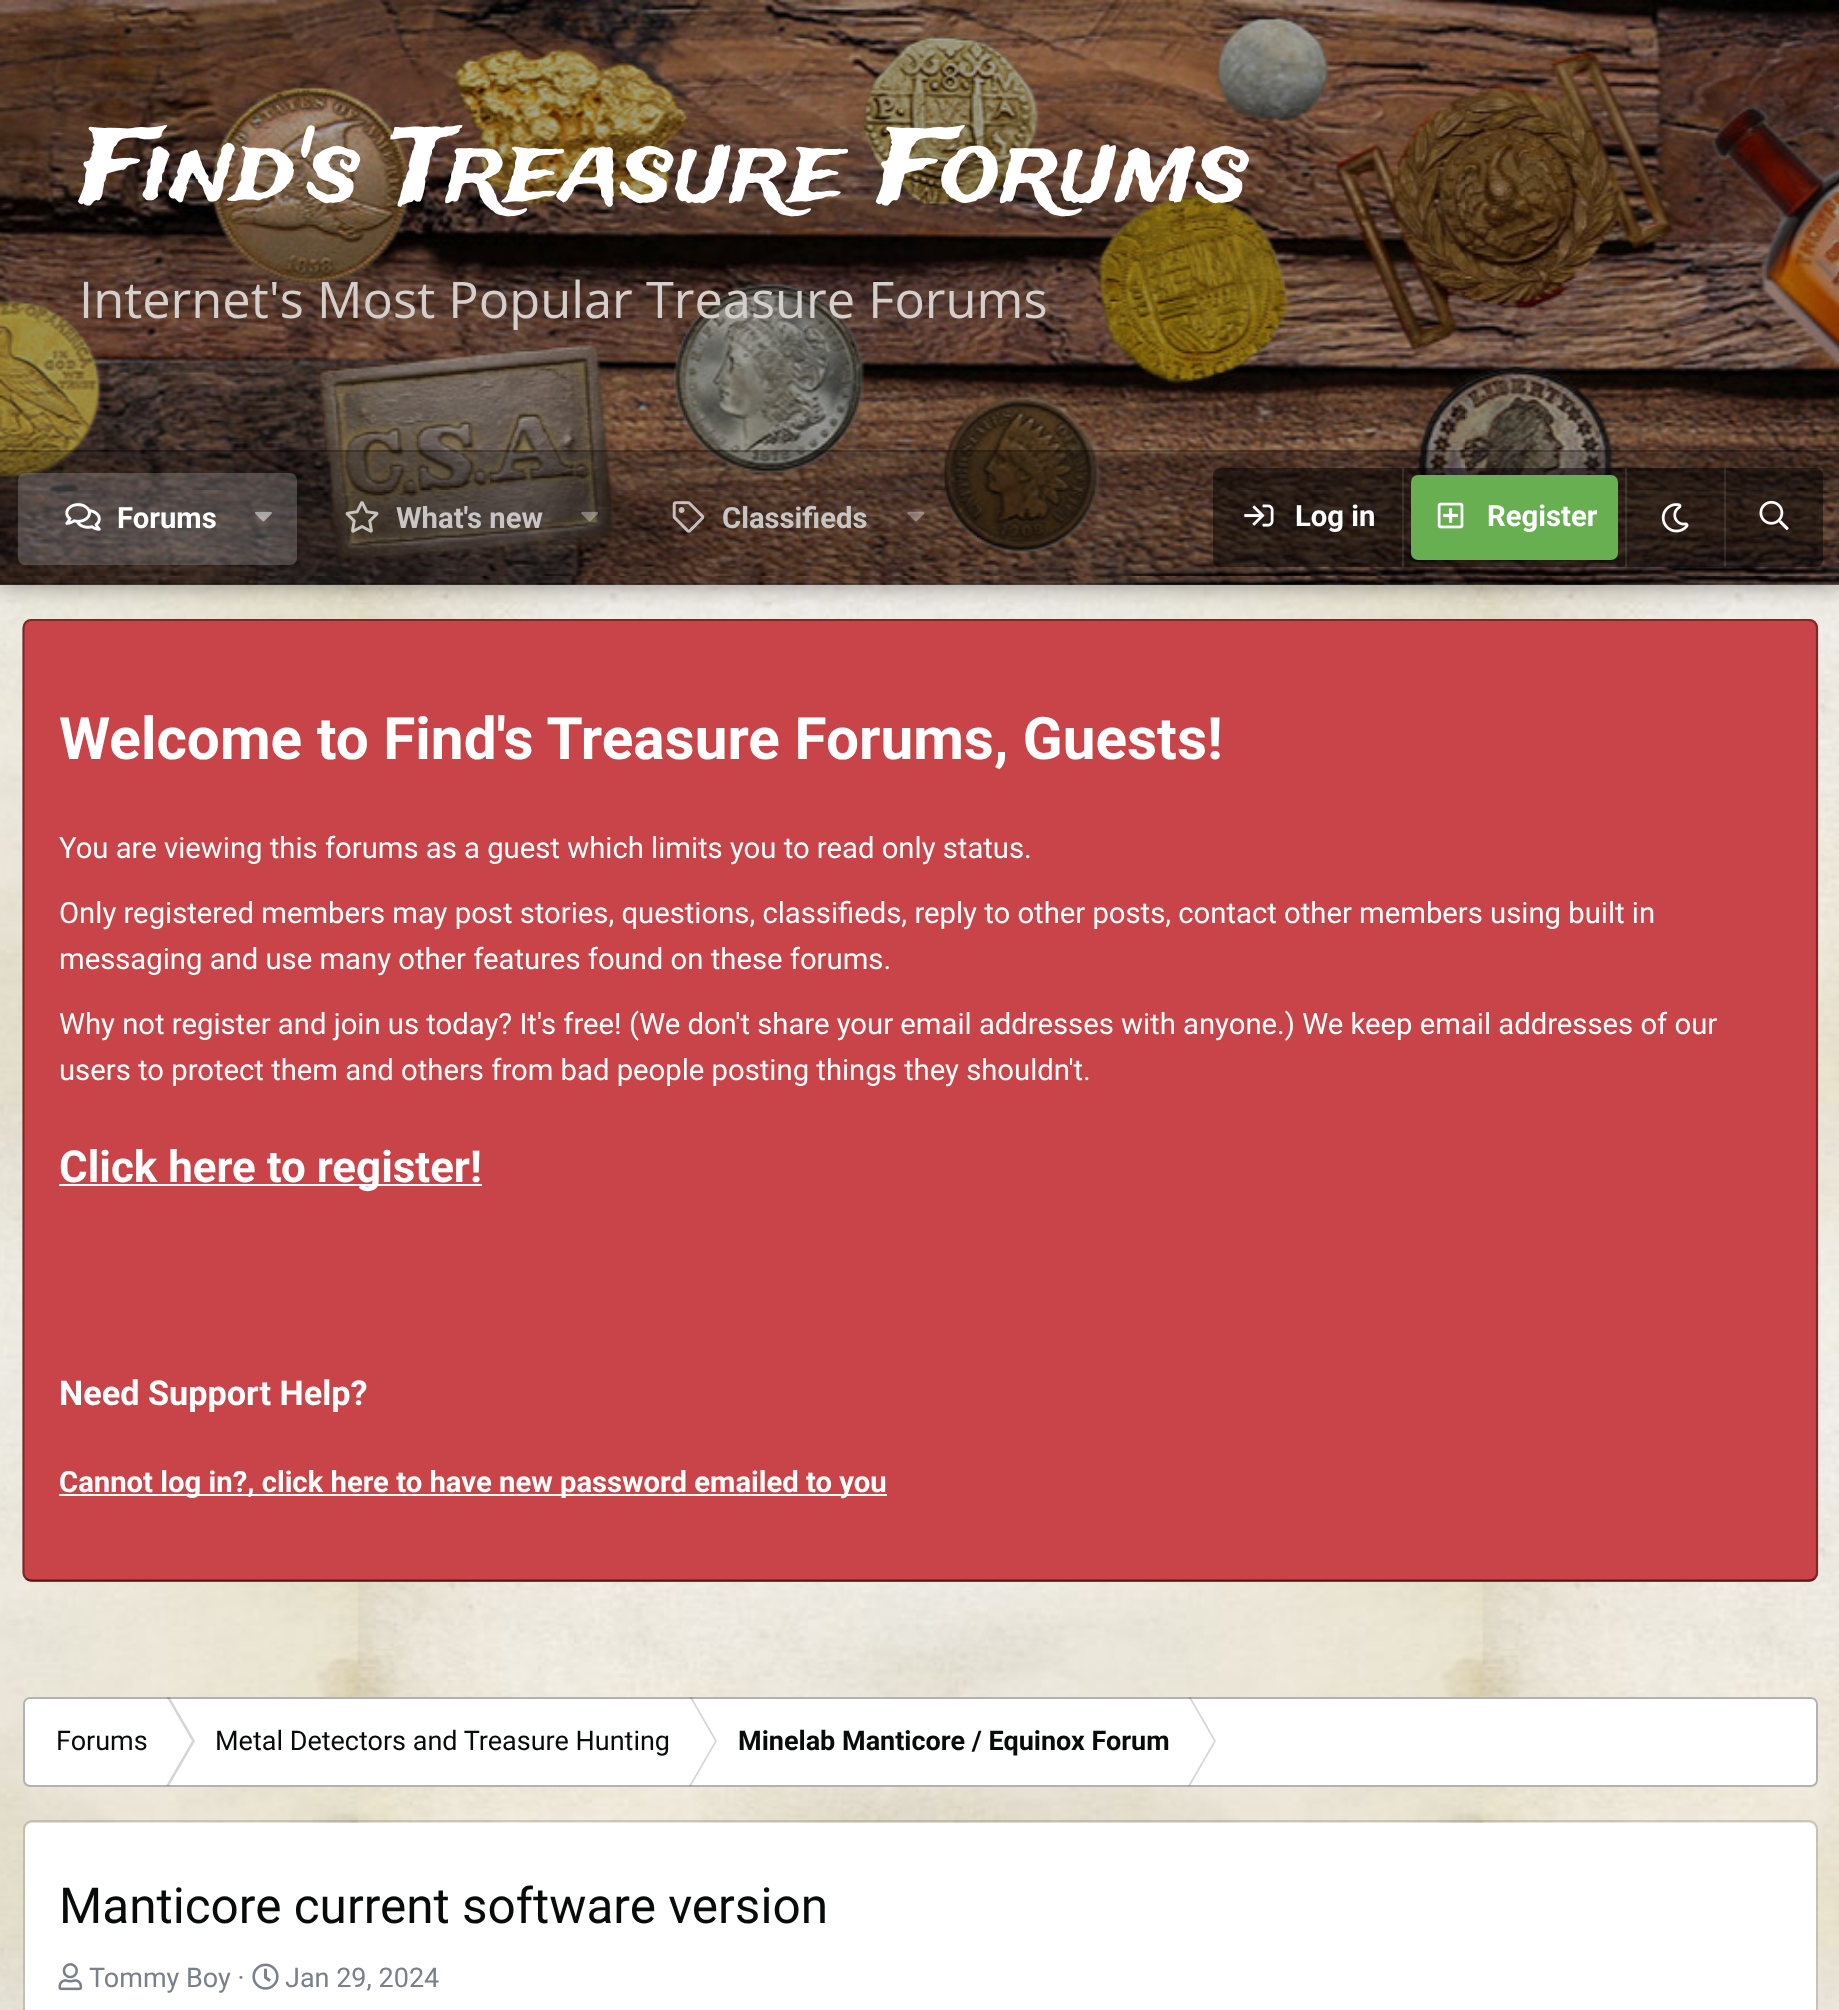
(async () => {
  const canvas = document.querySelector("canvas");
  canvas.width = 1839;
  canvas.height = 2010;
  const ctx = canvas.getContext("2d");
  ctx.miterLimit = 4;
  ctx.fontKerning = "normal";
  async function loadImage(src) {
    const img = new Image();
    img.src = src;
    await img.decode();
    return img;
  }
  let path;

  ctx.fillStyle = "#ffffff";
  ctx.fillRect(0, 0, 1839, 2010);
  ctx.drawImage(await loadImage("img/1.png"), 0, 575, 1839, 1435);
  ctx.fillStyle = "#c84448";
  ctx.beginPath();
  ctx.roundRect(23, 619, 1795, 963, 9);
  ctx.fill();
  path = new Path2D("M1814.5 1578.5C1813 1580 1811 1580.5 1809 1580.5H31.5C29.5 1580.5 27.5 1580 26 1578.5");
  ctx.strokeStyle = "#591a1c";
  ctx.lineWidth = 2.2;
  ctx.stroke(path);
  path = new Path2D("M26 1578.5C24.5 1577 23.5 1575 23.5 1573V628C23.5 625.5 24.5 623.5 26 622C27.5 620.5 29.5 620 31.5 620H1809C1811 620 1813 620.5 1814.5 622C1816 623.5 1817 625.5 1817 628V1573C1817 1575 1816 1577 1814.5 1578.5");
  ctx.strokeStyle = "#802628";
  ctx.stroke(path);
  ctx.fillStyle = "rgba(0, 0, 0, 0.35)";
  ctx.filter = "blur(11px)";
  ctx.beginPath();
  ctx.rect(0, 2, 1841, 585);
  ctx.fill();
  ctx.filter = "none";
  ctx.drawImage(await loadImage("img/2.png"), 0, 575, 1839, 10);
  ctx.drawImage(await loadImage("img/3.png"), 0, 0, 1839, 576);
  for (const [x, y, w, h, color] of [
    [0, 450, 1839, 135, "rgba(0, 0, 0, 0.2)"],
    [0, 450, 1839, 2, "rgba(0, 0, 0, 0.2)"],
    [0, 583, 1839, 2, "rgba(0, 0, 0, 0.2)"],
  ]) {
    ctx.fillStyle = color;
    ctx.fillRect(x, y, w, h);
  }
  ctx.fillStyle = "rgba(255, 255, 255, 0.2)";
  ctx.beginPath();
  ctx.roundRect(18, 473, 279, 92, 7);
  ctx.fill();
  ctx.drawImage(await loadImage("img/4.png"), 65, 503, 36, 28);
  ctx.drawImage(await loadImage("img/5.png"), 255, 511, 17, 11);
  ctx.drawImage(await loadImage("img/6.png"), 345, 501, 34, 32);
  ctx.drawImage(await loadImage("img/7.png"), 581, 511, 17, 11);
  ctx.drawImage(await loadImage("img/8.png"), 672, 501, 33, 32);
  ctx.drawImage(await loadImage("img/9.png"), 907, 511, 18, 11);
  ctx.fillStyle = "rgba(0, 0, 0, 0.5)";
  ctx.beginPath();
  ctx.roundRect(1213, 468, 610, 99, 7);
  ctx.fill();
  ctx.drawImage(await loadImage("img/10.png"), 1244, 504, 30, 23);
  ctx.fillStyle = "rgba(255, 255, 255, 0.1)";
  ctx.fillRect(1402, 468, 2, 99);
  ctx.fillStyle = "#67af51";
  ctx.beginPath();
  ctx.roundRect(1411, 475, 207, 85, 7);
  ctx.fill();
  ctx.drawImage(await loadImage("img/11.png"), 1437, 502, 27, 27);
  ctx.fillStyle = "rgba(255, 255, 255, 0.1)";
  ctx.fillRect(1625, 468, 2, 99);
  ctx.drawImage(await loadImage("img/12.png"), 1661, 503, 28, 30);
  ctx.fillRect(1724, 468, 2, 99);
  ctx.drawImage(await loadImage("img/13.png"), 1759, 500, 30, 31);
  ctx.fillStyle = "#ffffff";
  ctx.fillRect(59, 1184, 423, 2);
  ctx.fillRect(59, 1494, 828, 2);
  ctx.beginPath();
  ctx.roundRect(23, 1697, 1795, 90, 7);
  ctx.fill();
  ctx.save();
  ctx.beginPath();
  ctx.rect(23, 1697, 1795, 90);
  ctx.clip();
  ctx.fillStyle = "#d6d6d6";
  path = new Path2D("M166 1696H169L195 1741H192Z");
  ctx.fill(path);
  ctx.restore();
  ctx.fillStyle = "#d6d6d6";
  path = new Path2D("M192 1741H195L169 1786H166Z");
  ctx.fill(path);
  ctx.save();
  ctx.beginPath();
  ctx.rect(23, 1697, 1795, 90);
  ctx.clip();
  path = new Path2D("M689 1696H691L717 1741H715Z");
  ctx.fill(path);
  ctx.restore();
  path = new Path2D("M715 1741H717L691 1786H689Z");
  ctx.fill(path);
  ctx.save();
  ctx.beginPath();
  ctx.rect(23, 1697, 1795, 90);
  ctx.clip();
  path = new Path2D("M1188 1696H1190L1216 1741H1214Z");
  ctx.fill(path);
  ctx.restore();
  path = new Path2D("M1214 1741H1216L1190 1786H1188Z");
  ctx.fill(path);
  ctx.beginPath();
  ctx.roundRect(24, 1698, 1793, 88, 6);
  ctx.strokeStyle = "rgba(0, 0, 0, 0.3)";
  ctx.lineWidth = 2;
  ctx.stroke();
  ctx.fillStyle = "#ffffff";
  ctx.beginPath();
  ctx.roundRect(25, 1823, 1791, 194, 7);
  ctx.fill();
  ctx.beginPath();
  ctx.roundRect(24, 1821, 1793, 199, 8);
  ctx.strokeStyle = "rgba(20, 20, 20, 0.16)";
  ctx.stroke();
  ctx.drawImage(await loadImage("img/14.png"), 58, 1963, 25, 28);
  ctx.drawImage(await loadImage("img/15.png"), 252, 1963, 27, 27);
  ctx.font = "101.25px Trade Winds";
  ctx.fillText("Find's Treasure Forums", 79, 200);
  ctx.font = "50.6px Open Sans";
  ctx.fillStyle = "#d5cfcc";
  ctx.fillText("Internet's Most Popular Treasure Forums", 79, 318);
  ctx.font = "bold 29.25px Roboto";
  ctx.fillStyle = "#ffffff";
  ctx.fillText("Forums", 117, 528);
  ctx.fillStyle = "#c8c6c4";
  ctx.fillText("What's new", 396, 528);
  ctx.fillText("Classifieds", 722, 528);
  ctx.fillStyle = "#ffffff";
  ctx.fillText("Log in", 1295, 526);
  ctx.fillText("Register", 1487, 526);
  ctx.font = "bold 58.5px Roboto";
  ctx.fillText("Welcome to Find's Treasure Forums, Guests!", 59, 759);
  ctx.font = "29.25px Roboto";
  for (const [text, x, y] of [
    ["You are viewing this forums as a guest which limits you to read only status.", 59, 858],
    ["Only registered members may post stories, questions, classifieds, reply to other posts, contact other members using built in", 59, 923],
    ["messaging and use many other features found on these forums.", 59, 969],
    ["Why not register and join us today? It's free! (We don't share your email addresses with anyone.) We keep email addresses of our", 59, 1034],
    ["users to protect them and others from bad people posting things they shouldn't.", 59, 1080],
  ]) {
    ctx.fillText(text, x, y);
  }
  ctx.font = "bold 43.9px Roboto";
  ctx.fillText("Click here to register!", 59, 1182);
  ctx.font = "bold 34.25px Roboto";
  ctx.fillText("Need Support Help?", 59, 1405);
  ctx.font = "bold 29.25px Roboto";
  ctx.fillText("Cannot log in?, click here to have new password emailed to you", 59, 1492);
  ctx.font = "27px Roboto";
  ctx.fillStyle = "#090a0a";
  ctx.fillText("Forums", 56, 1750);
  ctx.fillText("Metal Detectors and Treasure Hunting", 215, 1750);
  ctx.font = "bold 27px Roboto";
  ctx.fillText("Minelab Manticore / Equinox Forum", 738, 1750);
  ctx.font = "49.5px Roboto";
  ctx.fillText("Manticore current software version", 59, 1923);
  ctx.font = "27px Roboto";
  ctx.fillStyle = "#79808a";
  ctx.fillText("Tommy Boy ·", 89, 1987);
  ctx.fillText("Jan 29, 2024", 285, 1987);
})();
